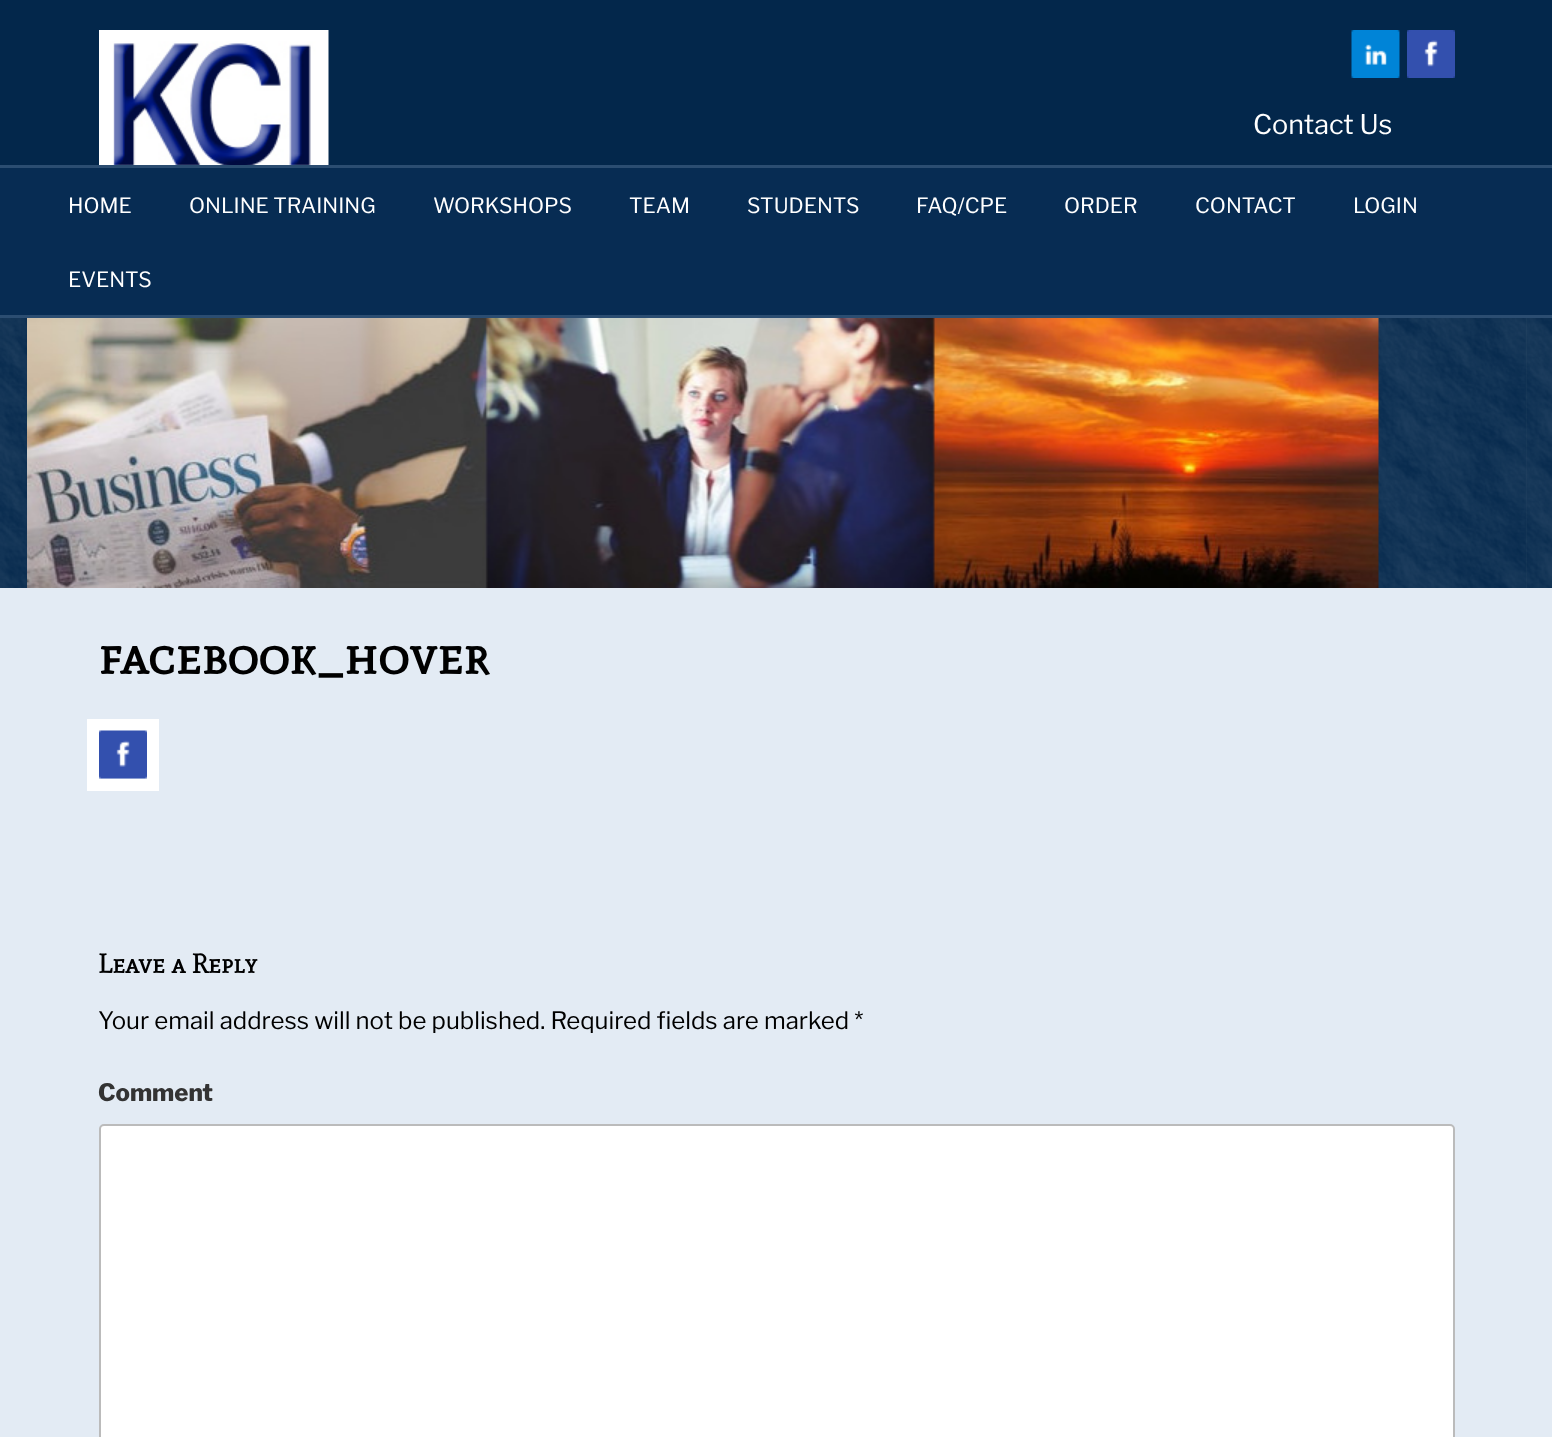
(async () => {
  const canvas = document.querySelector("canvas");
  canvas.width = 1552;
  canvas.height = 1437;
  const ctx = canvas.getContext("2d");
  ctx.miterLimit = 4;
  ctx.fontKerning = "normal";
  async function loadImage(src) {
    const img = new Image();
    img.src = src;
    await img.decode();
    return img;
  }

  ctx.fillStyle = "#03274b";
  ctx.fillRect(0, 0, 1552, 1437);
  ctx.drawImage(await loadImage("img/1.png"), 99, 30, 230, 135);
  ctx.drawImage(await loadImage("img/2.png"), 1351, 30, 49, 48);
  ctx.drawImage(await loadImage("img/3.png"), 1407, 30, 48, 48);
  for (const [x, y, w, h, color] of [
    [0, 168, 1552, 147, "#072c53"],
    [0, 165, 1552, 3, "#2b4d71"],
    [0, 315, 1552, 3, "#2b4d71"],
  ]) {
    ctx.fillStyle = color;
    ctx.fillRect(x, y, w, h);
  }
  ctx.drawImage(await loadImage("img/4.png"), 0, 318, 1552, 270);
  ctx.drawImage(await loadImage("img/5.png"), 27, 318, 1352, 270);
  ctx.drawImage(await loadImage("img/6.png"), 1526, 318, 1, 270);
  ctx.fillStyle = "#e3ebf4";
  ctx.fillRect(0, 588, 1552, 849);
  ctx.strokeStyle = "#ffffff";
  ctx.lineWidth = 12;
  ctx.strokeRect(93, 725, 60, 60);
  ctx.drawImage(await loadImage("img/7.png"), 99, 730, 48, 49);
  ctx.fillStyle = "#ffffff";
  ctx.beginPath();
  ctx.roundRect(100, 1125, 1354, 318, 4);
  ctx.fill();
  ctx.strokeStyle = "#bbbbbb";
  ctx.lineWidth = 2;
  ctx.stroke();
  ctx.font = "27px Libre Franklin";
  ctx.fillText("Contact Us", 1253, 134);
  ctx.font = "21px Libre Franklin";
  for (const [text, x, y] of [
    ["HOME", 68, 213],
    ["ONLINE TRAINING", 189, 213],
    ["WORKSHOPS", 433, 213],
    ["TEAM", 629, 213],
    ["STUDENTS", 747, 213],
    ["FAQ/CPE", 916, 213],
    ["ORDER", 1064, 213],
    ["CONTACT", 1195, 213],
    ["LOGIN", 1353, 213],
    ["EVENTS", 68, 287],
  ]) {
    ctx.fillText(text, x, y);
  }
  ctx.font = "bold 54px Mate SC";
  ctx.fillStyle = "#000000";
  ctx.fillText("facebook_hover", 98, 674);
  ctx.font = "bold 27px Mate SC";
  ctx.fillText("Leave a Reply", 98, 973);
  ctx.font = "24px Libre Franklin";
  ctx.fillText("Your email address will not be published. Required fields are marked *", 98, 1029);
  ctx.font = "800 24px Libre Franklin";
  ctx.fillStyle = "#333333";
  ctx.fillText("Comment", 98, 1101);
})();
